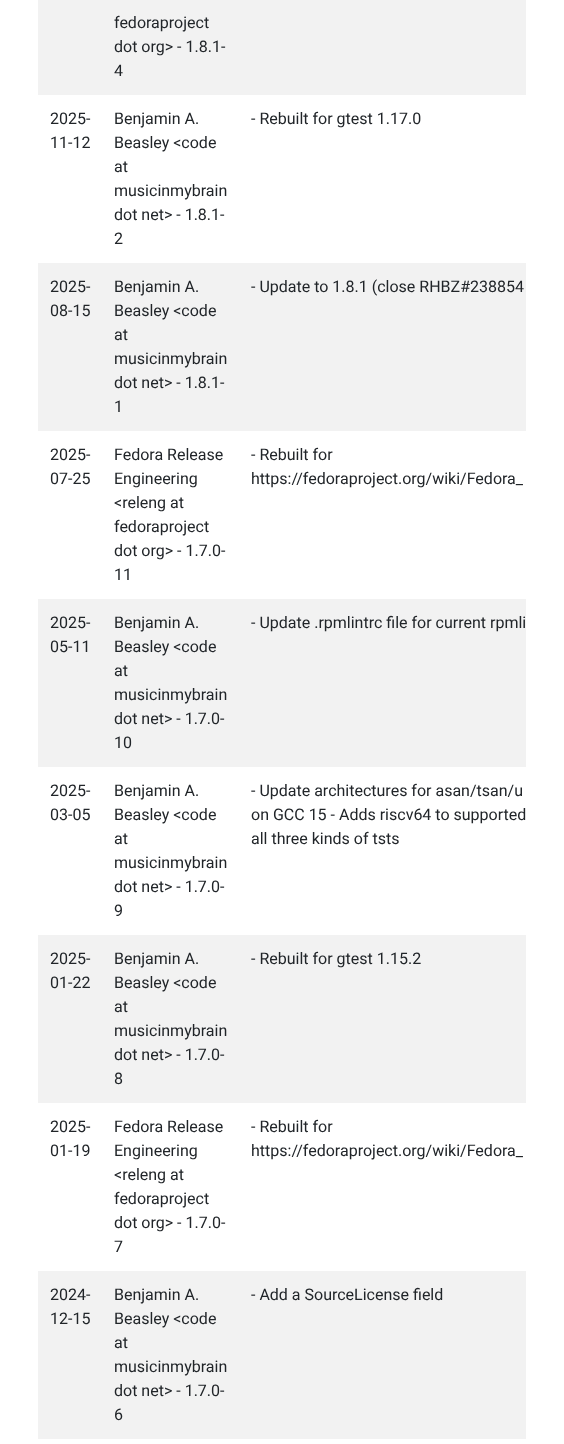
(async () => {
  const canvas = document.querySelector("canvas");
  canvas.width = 564;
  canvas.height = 1444;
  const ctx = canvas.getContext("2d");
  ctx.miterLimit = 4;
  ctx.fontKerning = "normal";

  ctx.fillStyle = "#ffffff";
  ctx.fillRect(0, 0, 564, 1444);
  for (const [x, y, w, h, color] of [
    [38, 0, 488, 95, "#f2f2f2"],
    [38, 263, 488, 168, "#f2f2f2"],
    [38, 599, 488, 168, "#f2f2f2"],
    [38, 935, 488, 168, "#f2f2f2"],
    [38, 1271, 488, 168, "#f2f2f2"],
  ]) {
    ctx.fillStyle = color;
    ctx.fillRect(x, y, w, h);
  }
  ctx.font = "16px Roboto";
  ctx.fillStyle = "#212529";
  for (const [text, x, y] of [
    ["fedoraproject", 114, 28],
    ["dot org> - 1.8.1-", 114, 52],
    ["4", 114, 76],
    ["2025-", 50, 124],
    ["11-12", 50, 148],
    ["Benjamin A.", 114, 124],
    ["Beasley <code", 114, 148],
    ["at", 114, 172],
    ["musicinmybrain", 114, 196],
    ["dot net> - 1.8.1-", 114, 220],
    ["2", 114, 244],
    ["- Rebuilt for gtest 1.17.0", 251, 124],
    ["2025-", 50, 292],
    ["08-15", 50, 316],
    ["Benjamin A.", 114, 292],
    ["Beasley <code", 114, 316],
    ["at", 114, 340],
    ["musicinmybrain", 114, 364],
    ["dot net> - 1.8.1-", 114, 388],
    ["1", 114, 412],
    ["- Update to 1.8.1 (close RHBZ#238854", 251, 292],
    ["2025-", 50, 460],
    ["07-25", 50, 484],
    ["Fedora Release", 114, 460],
    ["Engineering", 114, 484],
    ["<releng at", 114, 508],
    ["fedoraproject", 114, 532],
    ["dot org> - 1.7.0-", 114, 556],
    ["11", 114, 580],
    ["- Rebuilt for", 251, 460],
    ["https://fedoraproject.org/wiki/Fedora_", 251, 484],
    ["2025-", 50, 628],
    ["05-11", 50, 652],
    ["Benjamin A.", 114, 628],
    ["Beasley <code", 114, 652],
    ["at", 114, 676],
    ["musicinmybrain", 114, 700],
    ["dot net> - 1.7.0-", 114, 724],
    ["10", 114, 748],
    ["- Update .rpmlintrc file for current rpmli", 251, 628],
    ["2025-", 50, 796],
    ["03-05", 50, 820],
    ["Benjamin A.", 114, 796],
    ["Beasley <code", 114, 820],
    ["at", 114, 844],
    ["musicinmybrain", 114, 868],
    ["dot net> - 1.7.0-", 114, 892],
    ["9", 114, 916],
    ["- Update architectures for asan/tsan/u", 251, 796],
    ["on GCC 15 - Adds riscv64 to supported", 251, 820],
    ["all three kinds of tsts", 251, 844],
    ["2025-", 50, 964],
    ["01-22", 50, 988],
    ["Benjamin A.", 114, 964],
    ["Beasley <code", 114, 988],
    ["at", 114, 1012],
    ["musicinmybrain", 114, 1036],
    ["dot net> - 1.7.0-", 114, 1060],
    ["8", 114, 1084],
    ["- Rebuilt for gtest 1.15.2", 251, 964],
    ["2025-", 50, 1132],
    ["01-19", 50, 1156],
    ["Fedora Release", 114, 1132],
    ["Engineering", 114, 1156],
    ["<releng at", 114, 1180],
    ["fedoraproject", 114, 1204],
    ["dot org> - 1.7.0-", 114, 1228],
    ["7", 114, 1252],
    ["- Rebuilt for", 251, 1132],
    ["https://fedoraproject.org/wiki/Fedora_", 251, 1156],
    ["2024-", 50, 1300],
    ["12-15", 50, 1324],
    ["Benjamin A.", 114, 1300],
    ["Beasley <code", 114, 1324],
    ["at", 114, 1348],
    ["musicinmybrain", 114, 1372],
    ["dot net> - 1.7.0-", 114, 1396],
    ["6", 114, 1420],
    ["- Add a SourceLicense field", 251, 1300],
  ]) {
    ctx.fillText(text, x, y);
  }
})();
